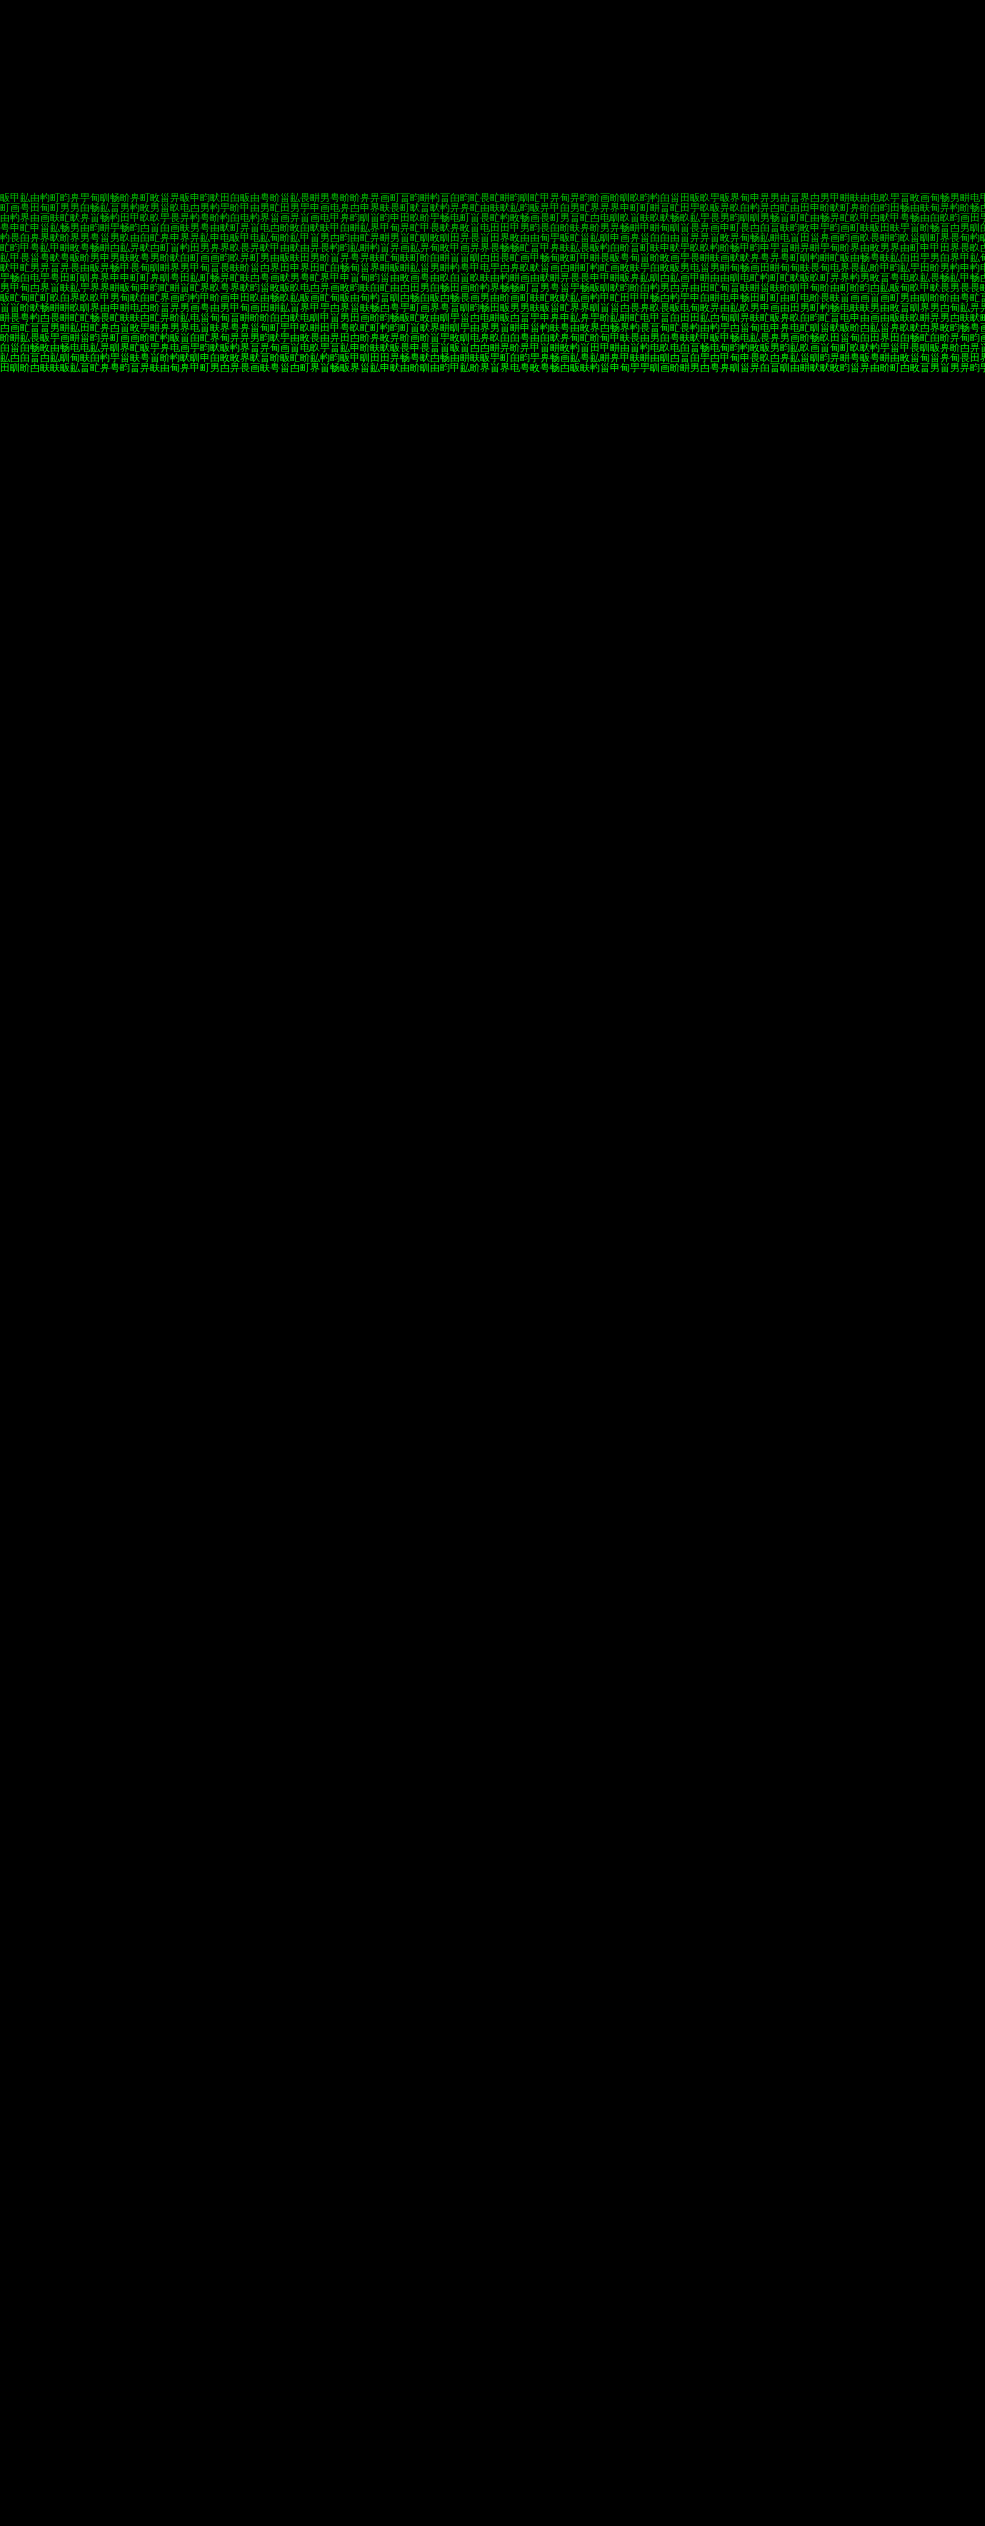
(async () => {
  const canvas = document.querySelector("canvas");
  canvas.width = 985;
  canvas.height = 2526;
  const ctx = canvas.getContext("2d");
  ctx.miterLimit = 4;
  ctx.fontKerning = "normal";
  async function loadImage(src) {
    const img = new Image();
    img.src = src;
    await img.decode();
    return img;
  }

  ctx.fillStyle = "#000000";
  ctx.fillRect(0, 0, 985, 2526);
  ctx.drawImage(await loadImage("img/1.png"), 0, 192, 985, 181);
})();
